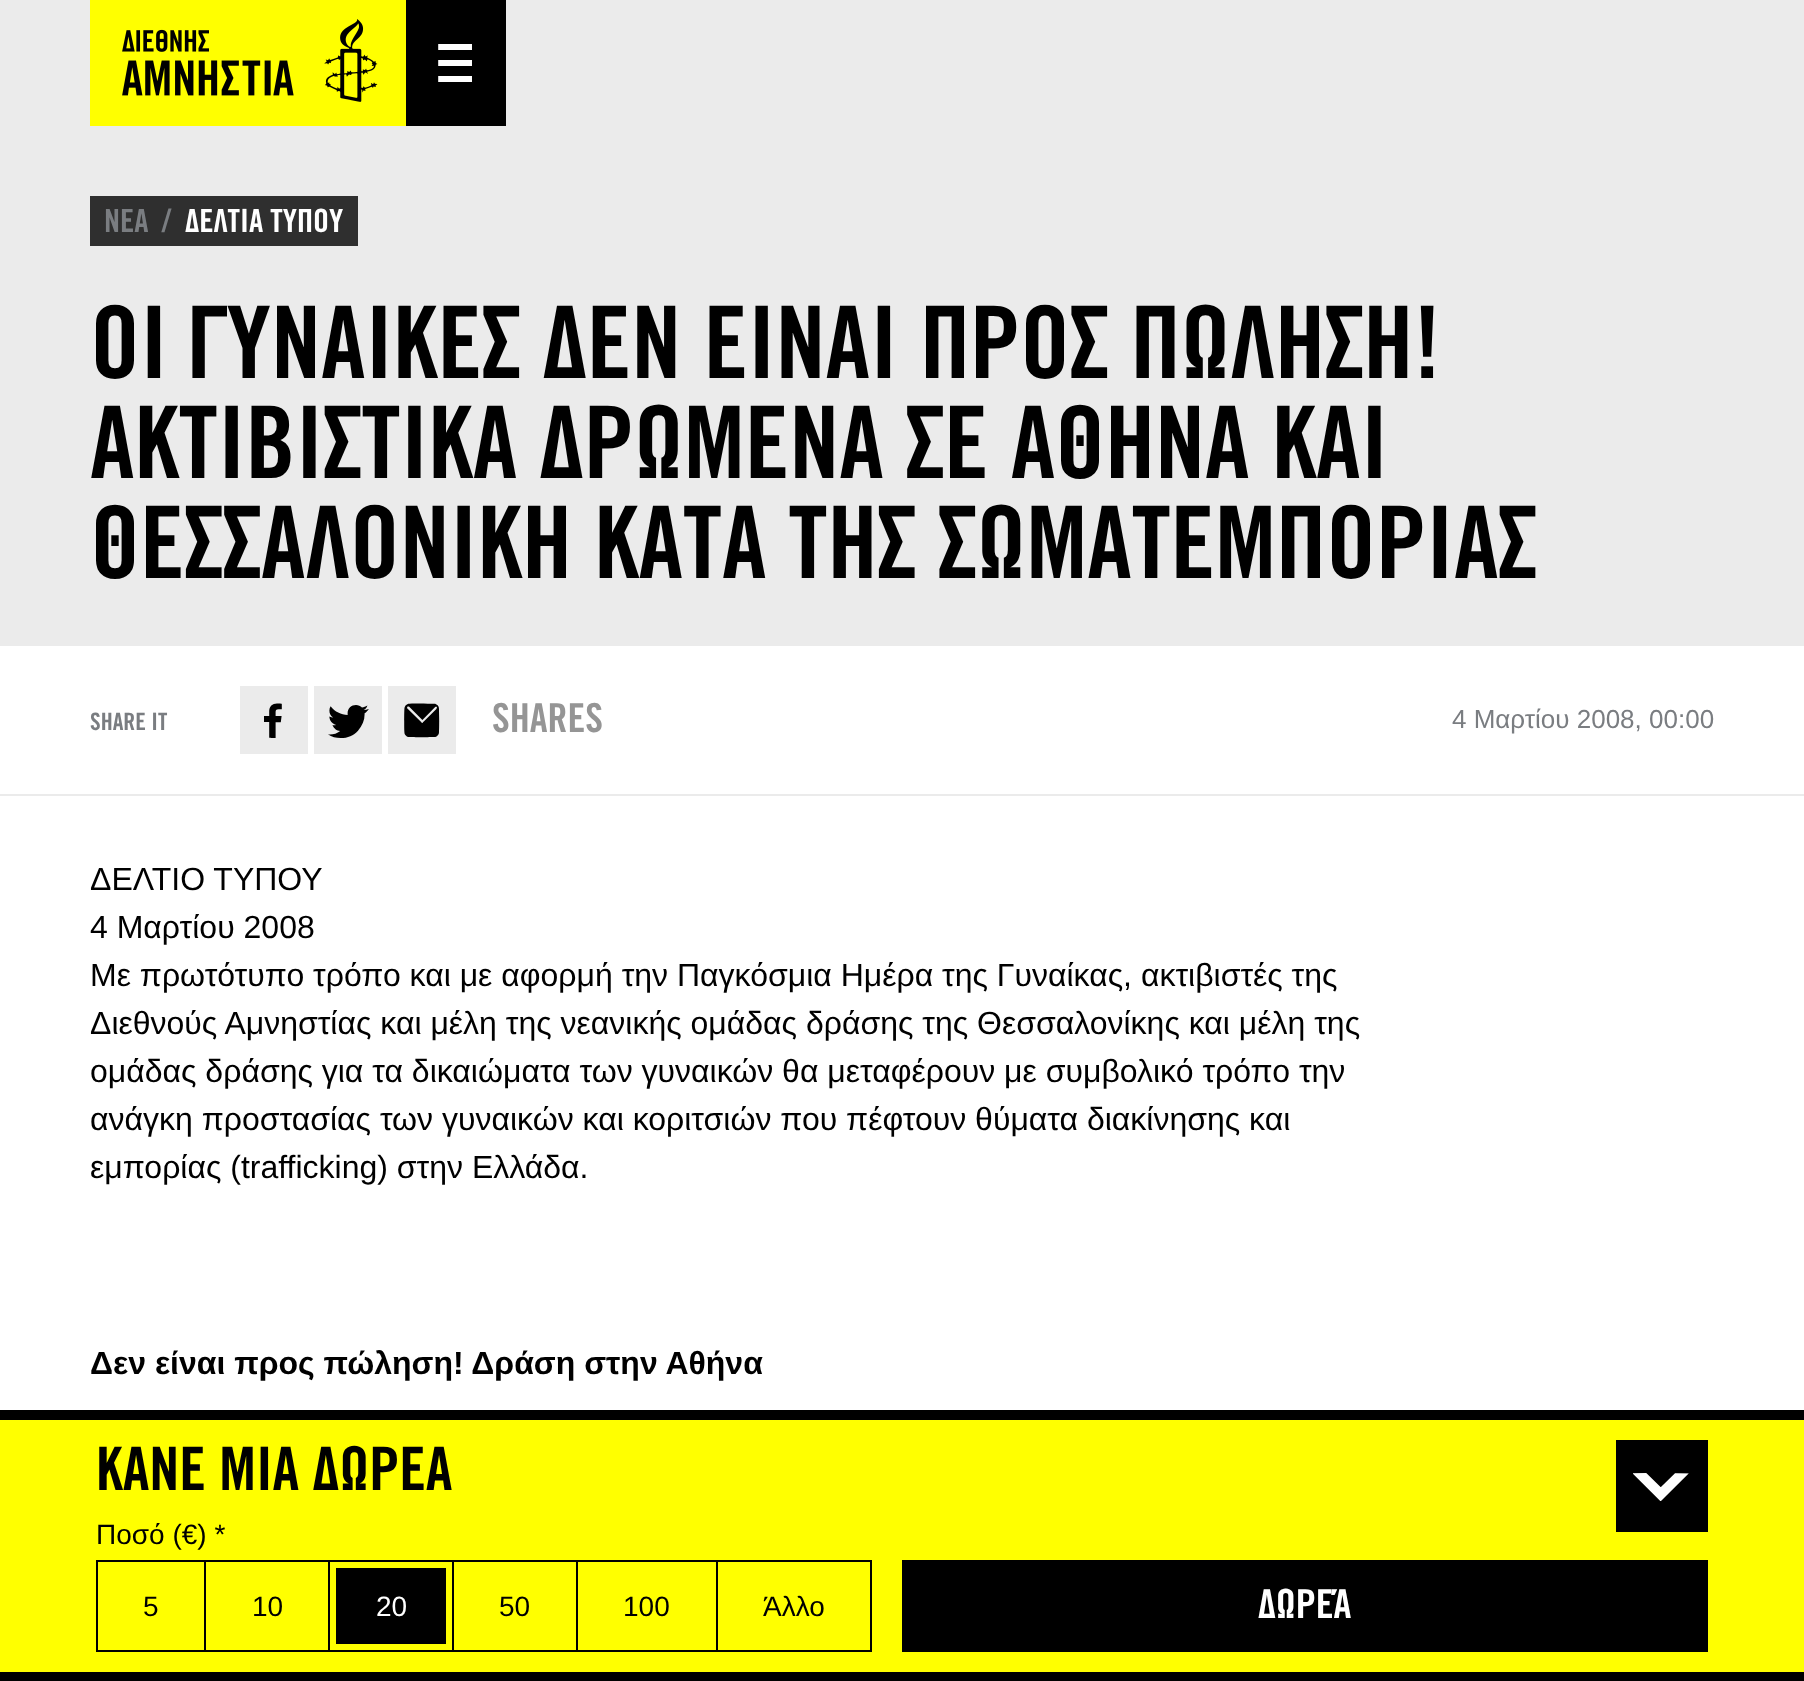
(async () => {
  const canvas = document.querySelector("canvas");
  canvas.width = 1804;
  canvas.height = 1681;
  const ctx = canvas.getContext("2d");
  ctx.miterLimit = 4;
  ctx.fontKerning = "normal";
  async function loadImage(src) {
    const img = new Image();
    img.src = src;
    await img.decode();
    return img;
  }

  ctx.fillStyle = "#ebebeb";
  ctx.fillRect(0, 0, 1804, 1681);
  ctx.fillStyle = "#ffff00";
  ctx.fillRect(90, 0, 316, 126);
  ctx.drawImage(await loadImage("img/1.png"), 122, 19, 256, 83);
  ctx.fillStyle = "#000000";
  ctx.fillRect(406, 0, 100, 126);
  ctx.drawImage(await loadImage("img/2.png"), 438, 44, 34, 38);
  for (const [x, y, w, h, color] of [
    [90, 196, 268, 50, "#2f2f2f"],
    [0, 646, 1804, 764, "#ffffff"],
    [0, 794, 1804, 2, "#ebebeb"],
    [240, 686, 68, 68, "#ebebeb"],
  ]) {
    ctx.fillStyle = color;
    ctx.fillRect(x, y, w, h);
  }
  ctx.drawImage(await loadImage("img/3.png"), 264, 703, 18, 35);
  ctx.fillRect(314, 686, 68, 68);
  ctx.drawImage(await loadImage("img/4.png"), 328, 705, 41, 33);
  ctx.fillRect(388, 686, 68, 68);
  ctx.drawImage(await loadImage("img/5.png"), 404, 703, 36, 35);
  for (const [x, y, w, h, color] of [
    [0, 1420, 1804, 252, "#ffff00"],
    [0, 1410, 1804, 10, "#000000"],
    [0, 1672, 1804, 9, "#000000"],
    [1616, 1440, 92, 92, "#000000"],
  ]) {
    ctx.fillStyle = color;
    ctx.fillRect(x, y, w, h);
  }
  ctx.drawImage(await loadImage("img/6.png"), 1633, 1473, 56, 28);
  ctx.strokeStyle = "#000000";
  ctx.lineWidth = 2;
  ctx.strokeRect(97, 1561, 774, 90);
  for (const [x, y, w, h, color] of [
    [204, 1562, 2, 88, "#000000"],
    [328, 1562, 2, 88, "#000000"],
    [336, 1568, 110, 76, "#000000"],
    [452, 1562, 2, 88, "#000000"],
    [576, 1562, 2, 88, "#000000"],
    [716, 1562, 2, 88, "#000000"],
    [902, 1560, 806, 92, "#000000"],
  ]) {
    ctx.fillStyle = color;
    ctx.fillRect(x, y, w, h);
  }
  ctx.font = "bold 32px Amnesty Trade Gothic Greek";
  ctx.fillStyle = "#7a7d81";
  ctx.fillText("ΝΕΑ", 104, 232);
  ctx.fillText("/", 162, 232);
  ctx.fillStyle = "#ffffff";
  ctx.fillText("ΔΕΛΤΙΑ ΤΥΠΟΥ", 185, 232);
  ctx.font = "bold 100px Amnesty Trade Gothic Greek";
  ctx.fillStyle = "#000000";
  for (const [text, x, y] of [
    ["ΟΙ ΓΥΝΑΙΚΕΣ ΔΕΝ ΕΙΝΑΙ ΠΡΟΣ ΠΩΛΗΣΗ!", 90, 378],
    ["ΑΚΤΙΒΙΣΤΙΚΑ ΔΡΩΜΕΝΑ ΣΕ ΑΘΗΝΑ ΚΑΙ", 90, 478],
    ["ΘΕΣΣΑΛΟΝΙΚΗ ΚΑΤΑ ΤΗΣ ΣΩΜΑΤΕΜΠΟΡΙΑΣ", 90, 578],
  ]) {
    ctx.fillText(text, x, y);
  }
  ctx.font = "bold 24px Amnesty Trade Gothic Greek";
  ctx.fillStyle = "#7a7d81";
  ctx.fillText("SHARE IT", 90, 730);
  ctx.font = "bold 40px Amnesty Trade Gothic Greek";
  ctx.fillStyle = "#959595";
  ctx.fillText("SHARES", 492, 732);
  ctx.font = "26px Liberation Sans";
  ctx.fillStyle = "#7a7d81";
  ctx.fillText("4 Μαρτίου 2008, 00:00", 1452, 728);
  ctx.font = "32px Liberation Sans";
  ctx.fillStyle = "#000000";
  for (const [text, x, y] of [
    ["ΔΕΛΤΙΟ ΤΥΠΟΥ", 90, 890],
    ["4 Μαρτίου 2008", 90, 938],
    ["Με πρωτότυπο τρόπο και με αφορμή την Παγκόσμια Ημέρα της Γυναίκας, ακτιβιστές της", 90, 986],
    ["Διεθνούς Αμνηστίας και μέλη της νεανικής ομάδας δράσης της Θεσσαλονίκης και μέλη της", 90, 1034],
    ["ομάδας δράσης για τα δικαιώματα των γυναικών θα μεταφέρουν με συμβολικό τρόπο την", 90, 1082],
    ["ανάγκη προστασίας των γυναικών και κοριτσιών που πέφτουν θύματα διακίνησης και", 90, 1130],
    ["εμπορίας (trafficking) στην Ελλάδα.", 90, 1178],
  ]) {
    ctx.fillText(text, x, y);
  }
  ctx.font = "bold 32px Liberation Sans";
  ctx.fillText("Δεν είναι προς πώληση! Δράση στην Αθήνα", 90, 1374);
  ctx.font = "bold 60px Amnesty Trade Gothic Greek";
  ctx.fillText("ΚΑΝΕ ΜΙΑ ΔΩΡΕΑ", 96, 1490);
  ctx.font = "28px Liberation Sans";
  for (const [text, x, y] of [
    ["Ποσό (€) *", 96, 1544],
    ["5", 143, 1616],
    ["10", 252, 1616],
  ]) {
    ctx.fillText(text, x, y);
  }
  ctx.fillStyle = "#ffffff";
  ctx.fillText("20", 376, 1616);
  ctx.fillStyle = "#000000";
  for (const [text, x, y] of [
    ["50", 499, 1616],
    ["100", 623, 1616],
    ["Άλλο", 763, 1616],
  ]) {
    ctx.fillText(text, x, y);
  }
  ctx.font = "bold 40px Amnesty Trade Gothic Greek";
  ctx.fillStyle = "#ffffff";
  ctx.fillText("ΔΩΡΕΆ", 1258, 1618);
})();
